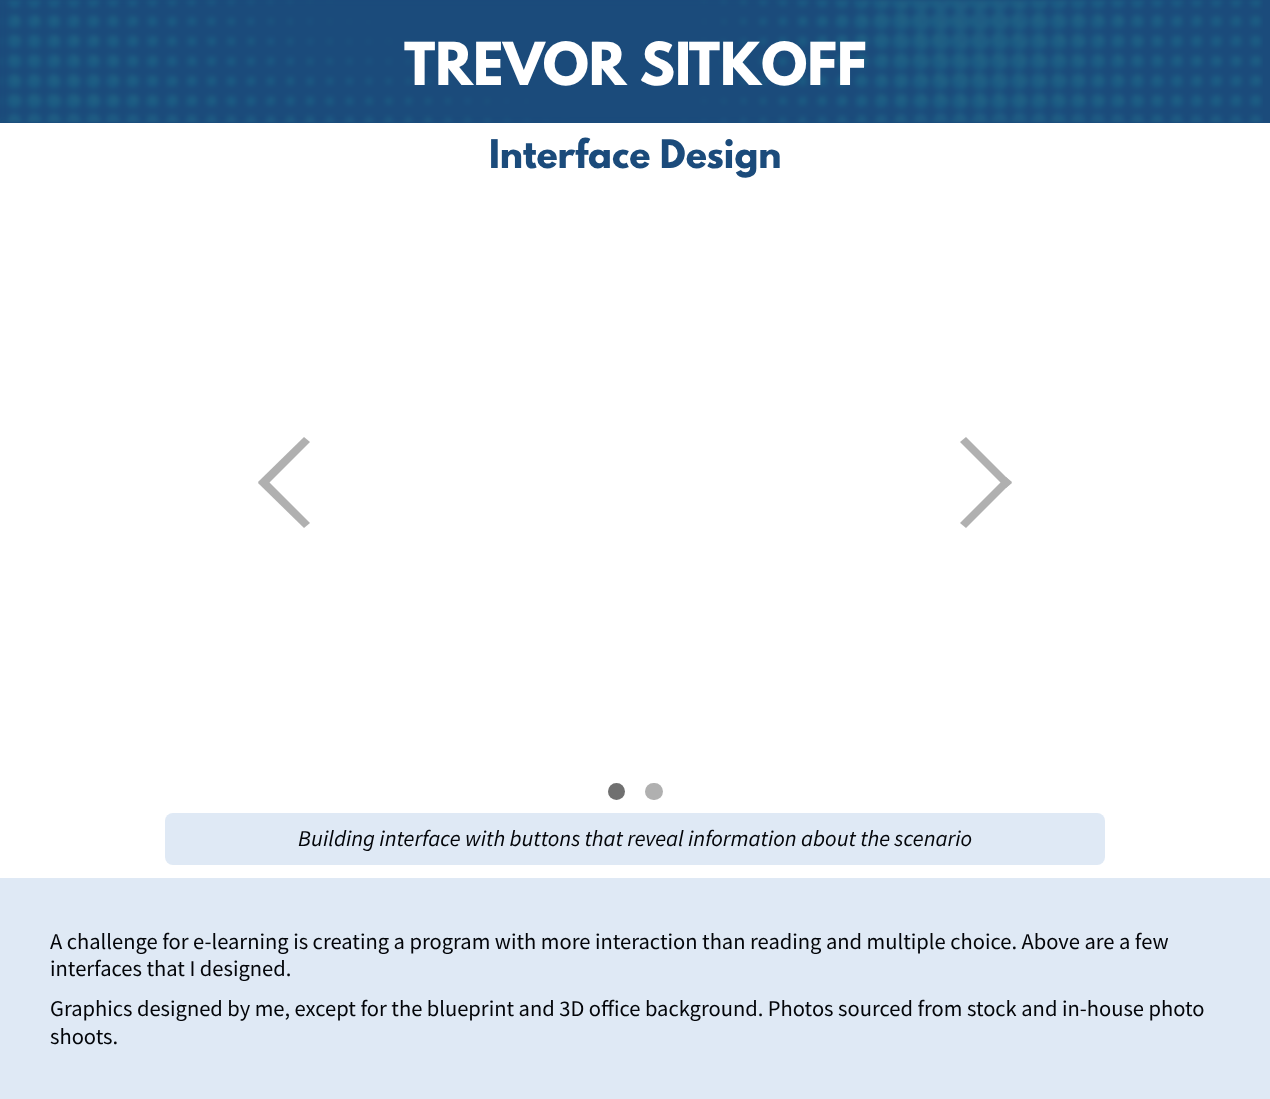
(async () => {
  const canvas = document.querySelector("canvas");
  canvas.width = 1270;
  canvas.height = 1099;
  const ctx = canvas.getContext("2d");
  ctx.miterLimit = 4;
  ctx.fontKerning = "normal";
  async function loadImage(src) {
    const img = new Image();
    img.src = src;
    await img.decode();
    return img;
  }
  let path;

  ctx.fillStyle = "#ffffff";
  ctx.fillRect(0, 0, 1270, 1099);
  ctx.fillStyle = "#1b4b7b";
  ctx.fillRect(0, 0, 1270, 123);
  ctx.drawImage(await loadImage("img/1.png"), 0, 0, 1263, 123);
  ctx.fillStyle = "#b0b0b0";
  path = new Path2D("M264 477L310 523L304 528L258 483Z");
  ctx.fill(path);
  path = new Path2D("M258 482L304 437L310 442L264 488Z");
  ctx.fill(path);
  path = new Path2D("M966 437L1012 483L1006 488L960 442Z");
  ctx.fill(path);
  path = new Path2D("M960 523L1006 477L1012 482L966 528Z");
  ctx.fill(path);
  ctx.fillStyle = "#707070";
  ctx.beginPath();
  ctx.arc(616.5, 791.5, 8.5, 0, Math.PI * 2);
  ctx.fill();
  ctx.fillStyle = "#b0b0b0";
  ctx.beginPath();
  ctx.roundRect(645, 783, 18, 17, 8.5);
  ctx.fill();
  ctx.fillStyle = "#dfe9f5";
  ctx.beginPath();
  ctx.roundRect(165, 813, 940, 52, 8);
  ctx.fill();
  ctx.fillRect(0, 878, 1270, 221);
  ctx.font = "bold 52.5px League Spartan";
  ctx.fillStyle = "#ffffff";
  ctx.fillText("TREVOR SITKOFF", 404, 85);
  ctx.font = "bold 35px League Spartan";
  ctx.fillStyle = "#1b4b7b";
  ctx.fillText("Interface Design", 489, 168);
  ctx.font = "italic 22.5px Source Sans Pro";
  ctx.fillStyle = "#030509";
  ctx.fillText("Building interface with buttons that reveal information about the scenario", 298, 846);
  ctx.font = "22.5px Source Sans Pro";
  for (const [text, x, y] of [
    ["A challenge for e-learning is creating a program with more interaction than reading and multiple choice. Above are a few", 50, 949],
    ["interfaces that I designed.", 50, 976],
    ["Graphics designed by me, except for the blueprint and 3D office background. Photos sourced from stock and in-house photo", 50, 1016],
    ["shoots.", 50, 1044],
  ]) {
    ctx.fillText(text, x, y);
  }
})();
